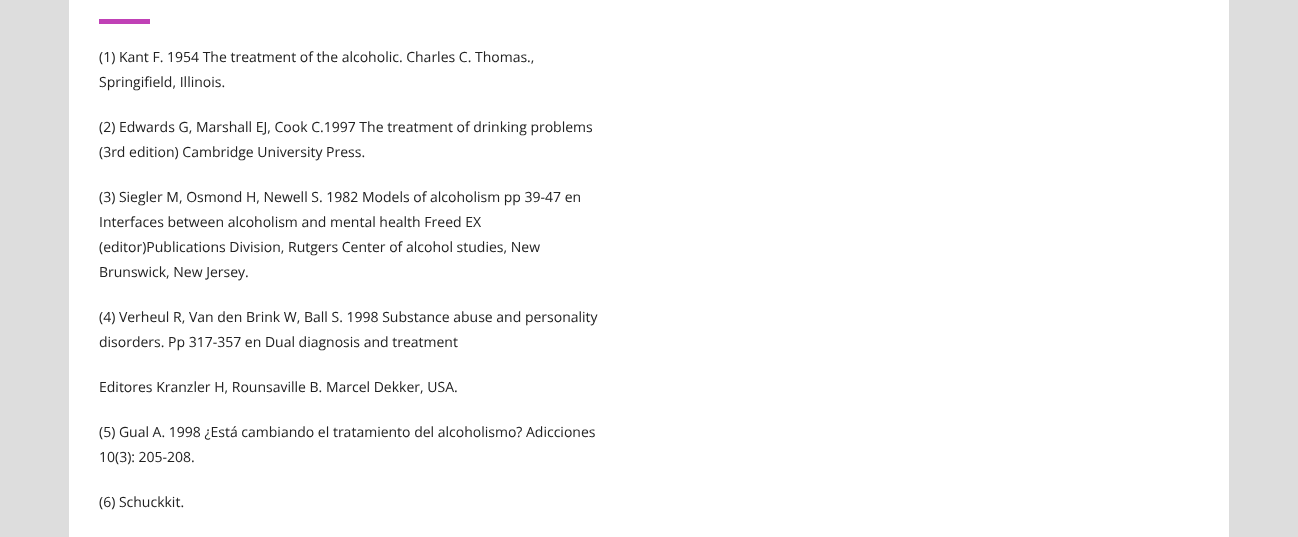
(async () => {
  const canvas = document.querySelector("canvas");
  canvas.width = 1298;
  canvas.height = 537;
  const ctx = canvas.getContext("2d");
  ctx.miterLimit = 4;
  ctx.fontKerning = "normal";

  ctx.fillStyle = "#dddddd";
  ctx.fillRect(0, 0, 1298, 537);
  ctx.fillStyle = "#ffffff";
  ctx.fillRect(69, 0, 1160, 537);
  ctx.fillStyle = "#c041b6";
  ctx.fillRect(99, 19, 51, 5);
  ctx.font = "14px Open Sans";
  ctx.fillStyle = "#212121";
  for (const [text, x, y] of [
    ["(1) Kant F. 1954 The treatment of the alcoholic. Charles C. Thomas.,", 99, 62],
    ["Springifield, Illinois.", 99, 87],
    ["(2) Edwards G, Marshall EJ, Cook C.1997 The treatment of drinking problems", 99, 132],
    ["(3rd edition) Cambridge University Press.", 99, 157],
    ["(3) Siegler M, Osmond H, Newell S. 1982 Models of alcoholism pp 39-47 en", 99, 202],
    ["Interfaces between alcoholism and mental health Freed EX", 99, 227],
    ["(editor)Publications Division, Rutgers Center of alcohol studies, New", 99, 252],
    ["Brunswick, New Jersey.", 99, 277],
    ["(4) Verheul R, Van den Brink W, Ball S. 1998 Substance abuse and personality", 99, 322],
    ["disorders. Pp 317-357 en Dual diagnosis and treatment", 99, 347],
    ["Editores Kranzler H, Rounsaville B. Marcel Dekker, USA.", 99, 392],
    ["(5) Gual A. 1998 ¿Está cambiando el tratamiento del alcoholismo? Adicciones", 99, 437],
    ["10(3): 205-208.", 99, 462],
    ["(6) Schuckkit.", 99, 507],
  ]) {
    ctx.fillText(text, x, y);
  }
})();
